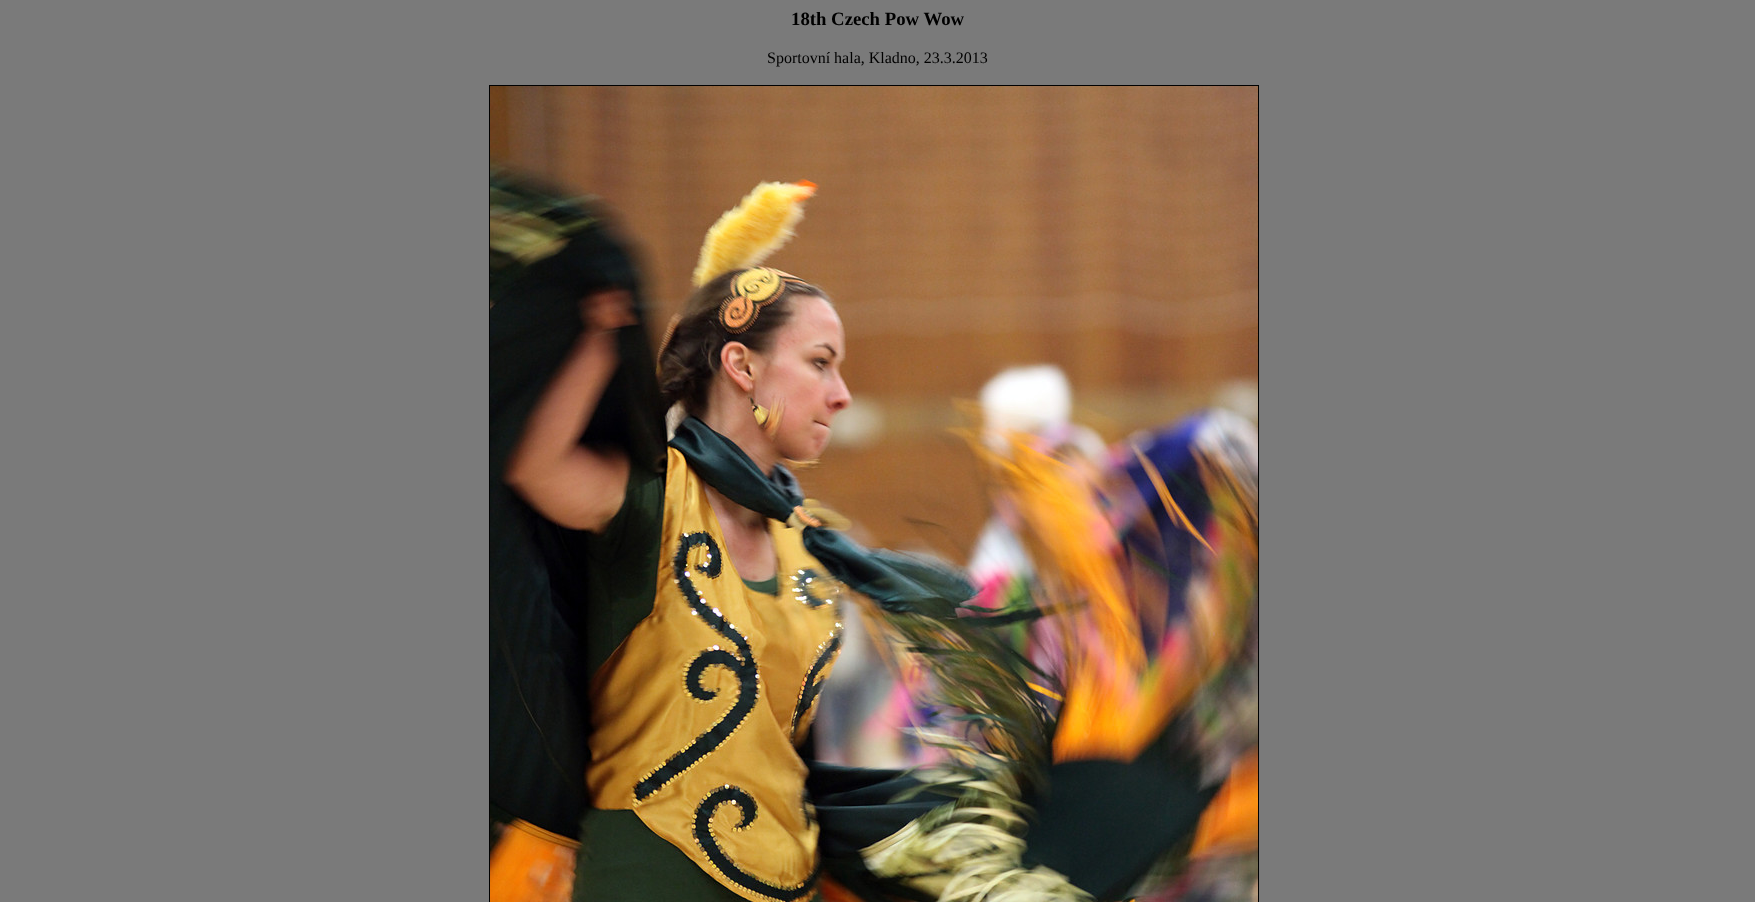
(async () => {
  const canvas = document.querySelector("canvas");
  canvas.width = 1755;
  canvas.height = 902;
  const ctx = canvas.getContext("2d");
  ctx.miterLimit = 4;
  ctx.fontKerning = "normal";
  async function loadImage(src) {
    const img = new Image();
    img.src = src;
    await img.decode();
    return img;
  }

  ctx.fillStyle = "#7a7a7a";
  ctx.fillRect(0, 0, 1755, 902);
  ctx.strokeStyle = "#000000";
  ctx.strokeRect(489.5, 85.5, 769, 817);
  ctx.drawImage(await loadImage("img/1.png"), 490, 86, 768, 816);
  ctx.font = "bold 18.75px Liberation Serif";
  ctx.fillStyle = "#000000";
  ctx.fillText("18th Czech Pow Wow", 791, 25);
  ctx.font = "16px Liberation Serif";
  ctx.fillText("Sportovní hala, Kladno, 23.3.2013", 767, 63);
})();
